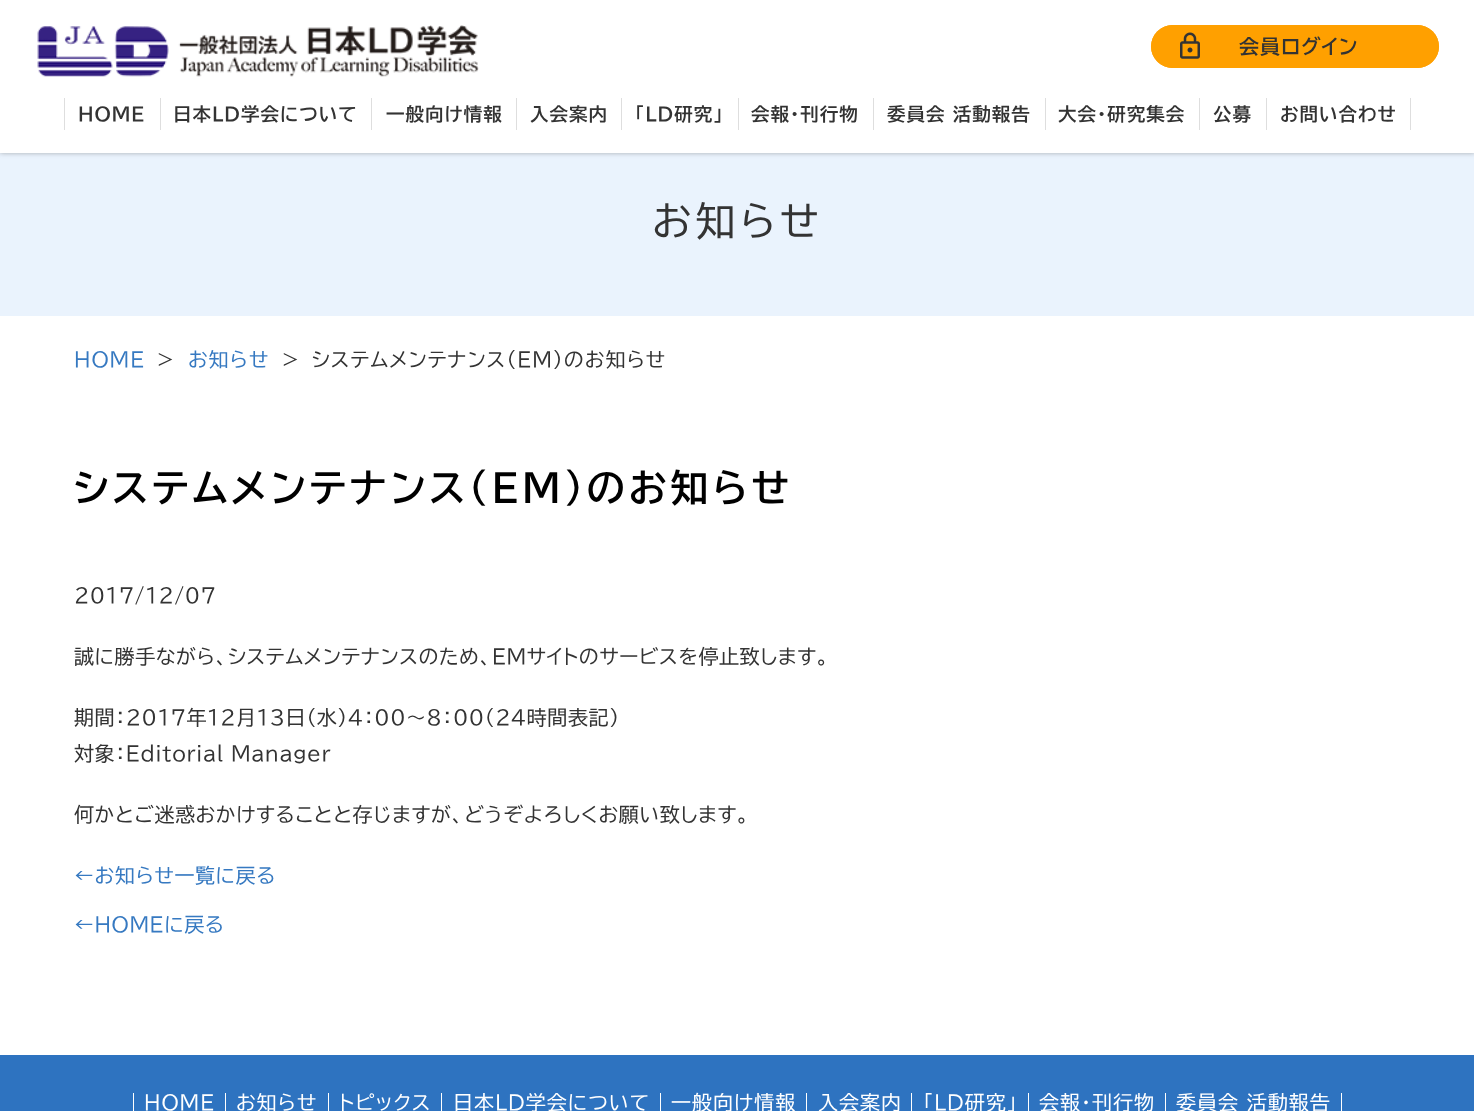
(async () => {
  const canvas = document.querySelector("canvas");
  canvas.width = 1474;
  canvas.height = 1111;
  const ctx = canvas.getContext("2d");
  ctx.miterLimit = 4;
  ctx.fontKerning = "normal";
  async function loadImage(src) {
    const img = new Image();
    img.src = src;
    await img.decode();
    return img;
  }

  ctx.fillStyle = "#ffffff";
  ctx.fillRect(0, 0, 1474, 1111);
  ctx.fillStyle = "#eaf3fd";
  ctx.fillRect(0, 153, 1474, 163);
  ctx.fillStyle = "rgba(64, 64, 64, 0.4)";
  ctx.filter = "blur(2.5px)";
  ctx.beginPath();
  ctx.rect(0, 0, 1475, 153);
  ctx.fill();
  ctx.filter = "none";
  ctx.fillStyle = "#ffffff";
  ctx.fillRect(0, 0, 1474, 153);
  ctx.drawImage(await loadImage("img/1.png"), 37, 25, 442, 52);
  ctx.fillStyle = "#ffa000";
  ctx.beginPath();
  ctx.roundRect(1151, 25, 288, 43, 21.5);
  ctx.fill();
  ctx.drawImage(await loadImage("img/2.png"), 1180, 32, 20, 27);
  ctx.beginPath();
  ctx.roundRect(1151.5, 25.5, 287, 42, 21);
  ctx.strokeStyle = "#ffa000";
  ctx.stroke();
  for (const [x, y, w, h, color] of [
    [64, 98, 1, 32, "#dedede"],
    [160, 98, 1, 32, "#dedede"],
    [371, 98, 1, 32, "#dedede"],
    [516, 98, 1, 32, "#dedede"],
    [621, 98, 1, 32, "#dedede"],
    [738, 98, 1, 32, "#dedede"],
    [873, 98, 1, 32, "#dedede"],
    [1045, 98, 1, 32, "#dedede"],
    [1199, 98, 1, 32, "#dedede"],
    [1266, 98, 1, 32, "#dedede"],
    [1410, 98, 1, 32, "#dedede"],
    [0, 1055, 1474, 56, "#2e73c0"],
    [225, 1093, 1, 18, "#ffffff"],
    [133, 1093, 1, 18, "#ffffff"],
    [328, 1093, 1, 18, "#ffffff"],
    [441, 1093, 1, 18, "#ffffff"],
    [660, 1093, 1, 18, "#ffffff"],
    [806, 1093, 1, 18, "#ffffff"],
    [911, 1093, 1, 18, "#ffffff"],
    [1028, 1093, 1, 18, "#ffffff"],
    [1165, 1093, 1, 18, "#ffffff"],
    [1341, 1093, 1, 18, "#ffffff"],
  ]) {
    ctx.fillStyle = color;
    ctx.fillRect(x, y, w, h);
  }
  ctx.letterSpacing = "1px";
  ctx.font = "bold 20px BIZ UDPGothic";
  ctx.fillStyle = "#333333";
  ctx.fillText("会員ログイン", 1239, 54);
  ctx.font = "bold 18.5px BIZ UDPGothic";
  for (const [text, x, y] of [
    ["HOME", 78, 121],
    ["日本LD学会について", 173, 121],
    ["一般向け情報", 386, 121],
    ["入会案内", 530, 121],
    ["「LD研究」", 635, 121],
    ["会報・刊行物", 751, 121],
    ["委員会 活動報告", 887, 121],
    ["大会・研究集会", 1058, 121],
    ["公募", 1213, 121],
    ["お問い合わせ", 1280, 121],
  ]) {
    ctx.fillText(text, x, y);
  }
  ctx.letterSpacing = "4px";
  ctx.font = "40px BIZ UDPGothic";
  ctx.fillText("お知らせ", 652, 236);
  ctx.letterSpacing = "1px";
  ctx.font = "20px BIZ UDPGothic";
  ctx.fillStyle = "#3679c1";
  ctx.fillText("HOME", 74, 367);
  ctx.fillStyle = "#333333";
  ctx.fillText(">", 157, 367);
  ctx.fillStyle = "#3679c1";
  ctx.fillText("お知らせ", 188, 367);
  ctx.fillStyle = "#333333";
  ctx.fillText(">", 282, 367);
  ctx.fillText("システムメンテナンス（EM）のお知らせ", 312, 367);
  ctx.letterSpacing = "3.75px";
  ctx.font = "bold 38px BIZ UDPGothic";
  ctx.fillStyle = "#000000";
  ctx.fillText("システムメンテナンス（EM）のお知らせ", 74, 502);
  ctx.letterSpacing = "0.6px";
  ctx.font = "20px BIZ UDPGothic";
  ctx.fillStyle = "#333333";
  for (const [text, x, y] of [
    ["2017/12/07", 74, 603],
    ["誠に勝手ながら、システムメンテナンスのため、EMサイトのサービスを停止致します。", 74, 664],
    ["期間：2017年12月13日（水）4：00～8：00（24時間表記）", 74, 725],
    ["対象：Editorial Manager", 74, 761],
    ["何かとご迷惑おかけすることと存じますが、どうぞよろしくお願い致します。", 74, 822],
  ]) {
    ctx.fillText(text, x, y);
  }
  ctx.fillStyle = "#3679c1";
  ctx.fillText("←お知らせ一覧に戻る", 74, 883);
  ctx.fillText("←HOMEに戻る", 74, 932);
  ctx.letterSpacing = "1px";
  ctx.fillStyle = "#ffffff";
  for (const [text, x, y] of [
    ["HOME", 144, 1110],
    ["お知らせ", 236, 1110],
    ["トピックス", 339, 1110],
    ["日本LD学会について", 453, 1110],
    ["一般向け情報", 671, 1110],
    ["入会案内", 818, 1110],
    ["「LD研究」", 923, 1110],
    ["会報・刊行物", 1039, 1110],
    ["委員会 活動報告", 1176, 1110],
  ]) {
    ctx.fillText(text, x, y);
  }
})();
